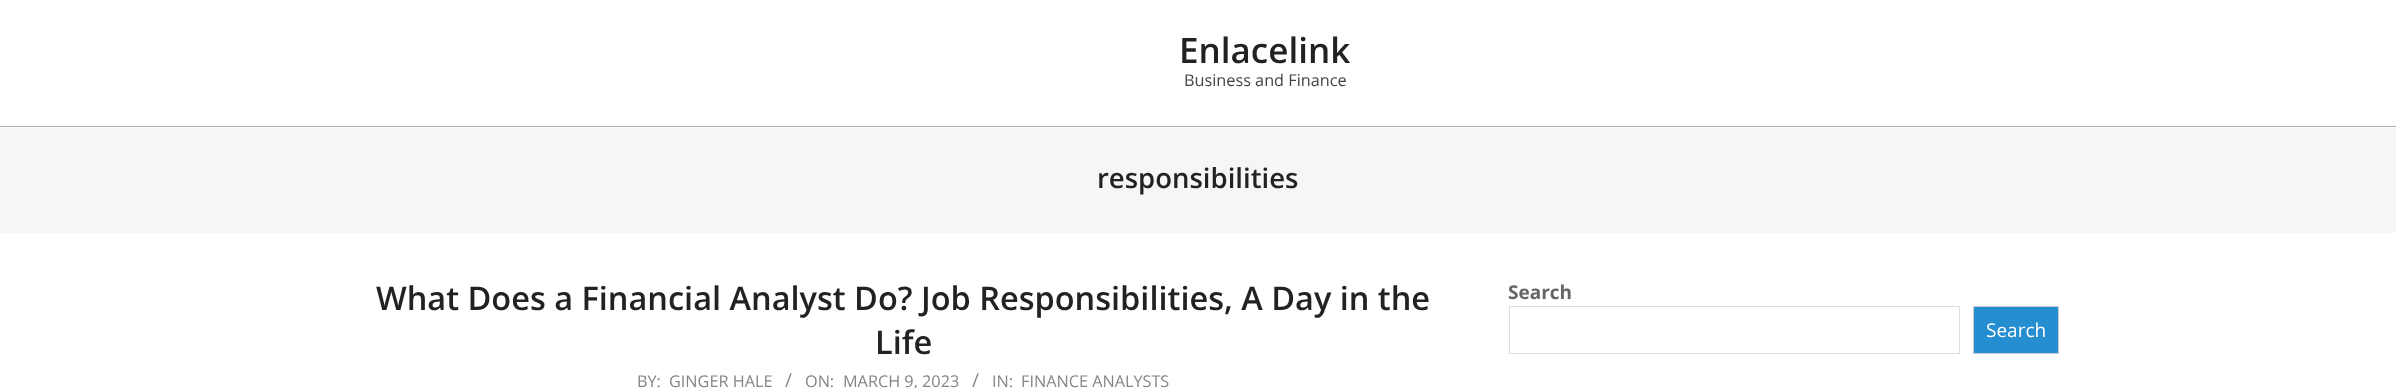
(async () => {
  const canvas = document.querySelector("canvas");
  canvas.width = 2396;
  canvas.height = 388;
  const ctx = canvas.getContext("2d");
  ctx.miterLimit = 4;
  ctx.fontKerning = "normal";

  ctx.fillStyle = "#ffffff";
  ctx.fillRect(0, 0, 2396, 388);
  ctx.fillStyle = "#ababab";
  ctx.fillRect(0, 126, 2396, 1);
  ctx.fillStyle = "#f6f6f6";
  ctx.fillRect(0, 128, 2396, 105);
  ctx.strokeStyle = "#dddddd";
  ctx.strokeRect(1509.5, 306.5, 450, 47);
  ctx.fillStyle = "#248ed0";
  ctx.beginPath();
  ctx.rect(1973.5, 306.5, 85, 47);
  ctx.fill();
  ctx.strokeStyle = "#cccccc";
  ctx.stroke();
  ctx.font = "600 35px Open Sans";
  ctx.fillStyle = "#222222";
  ctx.fillText("Enlacelink", 1179, 63);
  ctx.font = "16.25px Open Sans";
  ctx.fillStyle = "#444444";
  ctx.fillText("Business and Finance", 1184, 86);
  ctx.font = "600 27.5px Open Sans";
  ctx.fillStyle = "#222222";
  ctx.fillText("responsibilities", 1097, 188);
  ctx.font = "600 32.5px Open Sans";
  ctx.fillText("What Does a Financial Analyst Do? Job Responsibilities, A Day in the", 376, 310);
  ctx.fillText("Life", 875, 354);
  ctx.font = "16.25px Open Sans";
  ctx.fillStyle = "#858585";
  ctx.fillText("BY:", 637, 387);
  ctx.fillText("GINGER HALE", 669, 387);
  ctx.font = "19px Open Sans";
  ctx.fillText("/", 785, 387);
  ctx.font = "16.25px Open Sans";
  ctx.fillText("ON:", 805, 387);
  ctx.fillText("MARCH 9, 2023", 843, 387);
  ctx.font = "19px Open Sans";
  ctx.fillText("/", 972, 387);
  ctx.font = "16.25px Open Sans";
  ctx.fillText("IN:", 992, 387);
  ctx.fillText("FINANCE ANALYSTS", 1021, 387);
  ctx.font = "bold 19px Open Sans";
  ctx.fillStyle = "#666666";
  ctx.fillText("Search", 1508, 299);
  ctx.font = "19px Open Sans";
  ctx.fillStyle = "#ffffff";
  ctx.fillText("Search", 1986, 337);
})();
